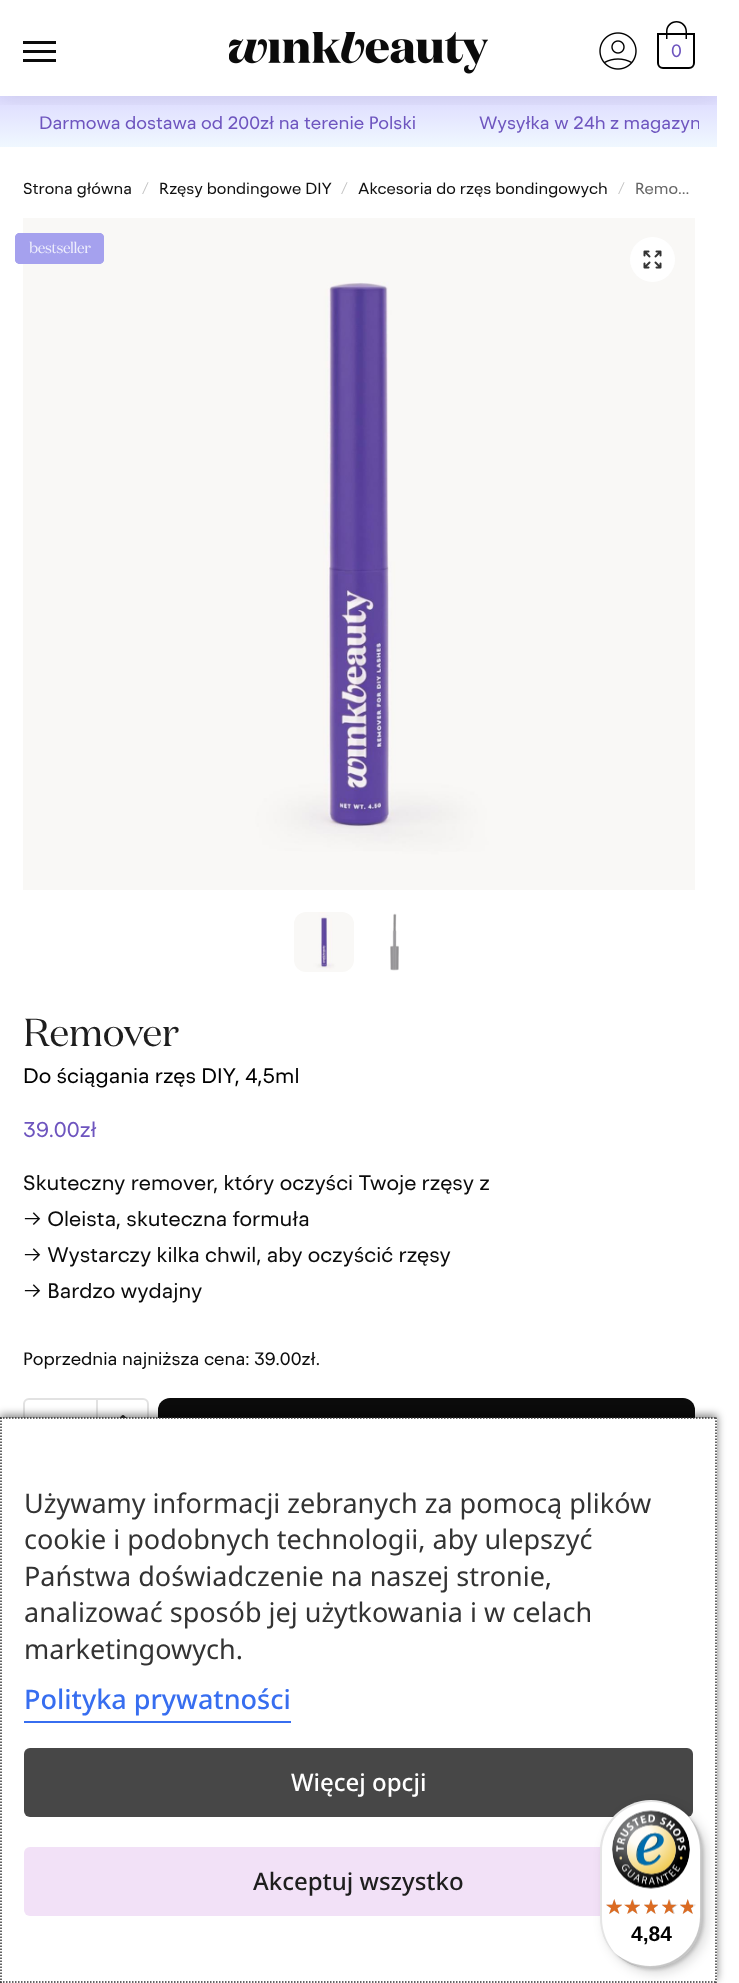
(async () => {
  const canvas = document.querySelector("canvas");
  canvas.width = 739;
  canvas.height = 1983;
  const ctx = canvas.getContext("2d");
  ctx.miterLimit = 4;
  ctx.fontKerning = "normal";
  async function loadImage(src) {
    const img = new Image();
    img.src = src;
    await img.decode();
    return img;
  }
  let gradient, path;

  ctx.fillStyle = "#ffffff";
  ctx.fillRect(0, 0, 739, 1983);
  gradient = ctx.createLinearGradient(359, 96, 359, 147);
  gradient.addColorStop(0, "#dddbff");
  gradient.addColorStop(1, "#f0f8ff");
  ctx.fillStyle = gradient;
  ctx.fillRect(0, 96, 717, 51);
  ctx.save();
  ctx.beginPath();
  ctx.rect(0, 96, 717, 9);
  ctx.clip();
  ctx.fillStyle = "rgba(0, 0, 0, 0.08)";
  ctx.filter = "blur(11px)";
  ctx.beginPath();
  ctx.rect(0, 2, 717, 96);
  ctx.fill();
  ctx.filter = "none";
  ctx.restore();
  for (const [x, y, w, h, color] of [
    [23, 41, 33, 3, "#0b0b0b"],
    [23, 50, 33, 3, "#0b0b0b"],
    [23, 59, 33, 3, "#0b0b0b"],
  ]) {
    ctx.fillStyle = color;
    ctx.fillRect(x, y, w, h);
  }
  ctx.drawImage(await loadImage("img/1.png"), 229, 32, 259, 42);
  ctx.drawImage(await loadImage("img/2.png"), 599, 32, 38, 38);
  ctx.beginPath();
  ctx.roundRect(658, 34, 36, 34, [0, 0, 5, 5]);
  ctx.strokeStyle = "#000000";
  ctx.lineWidth = 2;
  ctx.stroke();
  ctx.fillStyle = "#000000";
  path = new Path2D("M676.5 21C682.5 21 687 25.5 687 31.5V39H666V31.5C666 25.5 670.5 21 676.5 21ZM676.5 22.5C681.5 22.5 685.5 26.5 685.5 31.5V39H667.5V31.5C667.5 26.5 671.5 22.5 676.5 22.5Z");
  ctx.fill(path, "evenodd");
  ctx.fillStyle = "#ffffff";
  ctx.fillRect(717, 0, 13, 105);
  ctx.drawImage(await loadImage("img/3.png"), 23, 218, 672, 672);
  ctx.beginPath();
  ctx.arc(652.5, 259.5, 22.5, 0, Math.PI * 2);
  ctx.fill();
  ctx.drawImage(await loadImage("img/4.png"), 643, 250, 19, 19);
  ctx.drawImage(await loadImage("img/5.png"), 294, 912, 60, 60);
  ctx.drawImage(await loadImage("img/6.png"), 390, 913, 9, 58);
  ctx.fillStyle = "rgba(165, 161, 238, 0.8)";
  ctx.beginPath();
  ctx.roundRect(15, 233, 89, 31, 5);
  ctx.fill();
  ctx.beginPath();
  ctx.roundRect(15, 233, 89, 31, 5);
  ctx.fill();
  ctx.beginPath();
  ctx.roundRect(15, 233, 89, 31, 5);
  ctx.fill();
  ctx.beginPath();
  ctx.roundRect(15, 233, 89, 31, 5);
  ctx.fill();
  ctx.beginPath();
  ctx.roundRect(24, 1399, 73, 76, [5, 0, 0, 5]);
  ctx.strokeStyle = "#e2e2e2";
  ctx.stroke();
  ctx.fillStyle = "#ffffff";
  ctx.beginPath();
  ctx.roundRect(97, 1399, 51, 76, [0, 5, 5, 0]);
  ctx.fill();
  ctx.stroke();
  ctx.drawImage(await loadImage("img/7.png"), 119, 1415, 8, 3);
  ctx.fillStyle = "#0b0b0b";
  ctx.beginPath();
  ctx.roundRect(158, 1398, 537, 78, 12);
  ctx.fill();
  ctx.fillStyle = "rgba(0, 0, 0, 0.5)";
  ctx.filter = "blur(4px)";
  ctx.beginPath();
  ctx.rect(0, 1415, 717, 565);
  ctx.fill();
  ctx.filter = "none";
  ctx.fillStyle = "#ffffff";
  ctx.fillRect(0, 1418, 717, 565);
  path = new Path2D("M0 1418H717");
  ctx.strokeStyle = "#333333";
  ctx.lineWidth = 1.5;
  ctx.setLineDash([1.5, 1.5]);
  ctx.stroke(path);
  path = new Path2D("M716 1417.5V1983");
  ctx.stroke(path);
  path = new Path2D("M0 1982H717");
  ctx.stroke(path);
  path = new Path2D("M1 1417.5V1983");
  ctx.stroke(path);
  ctx.fillStyle = "#376ef0";
  ctx.fillRect(24, 1721, 267, 2);
  ctx.fillStyle = "#474747";
  ctx.beginPath();
  ctx.roundRect(24, 1748, 669, 69, 6);
  ctx.fill();
  ctx.fillStyle = "#f2e1f7";
  ctx.beginPath();
  ctx.roundRect(24, 1847, 669, 69, 6);
  ctx.fill();
  ctx.fillStyle = "rgba(0, 0, 0, 0.15)";
  ctx.filter = "blur(6px)";
  ctx.beginPath();
  ctx.roundRect(605, 1805, 102, 168, 51);
  ctx.fill();
  ctx.filter = "none";
  ctx.filter = "blur(1.5px)";
  ctx.beginPath();
  ctx.roundRect(602, 1802, 102, 168, 51);
  ctx.fill();
  ctx.filter = "none";
  ctx.fillStyle = "#ffffff";
  ctx.beginPath();
  ctx.roundRect(600, 1800, 102, 168, 51);
  ctx.fill();
  ctx.fillStyle = "rgba(0, 0, 0, 0.1)";
  path = new Path2D("M652 1802C665 1802 677 1807 686 1814C677 1805 665 1800 651 1800C623 1800 600 1823 600 1851V1917C600 1931 605 1943 614 1952C607 1943 602 1931 602 1918V1852C602 1824 624 1802 652 1802Z");
  ctx.fill(path);
  ctx.fillStyle = "rgba(0, 0, 0, 0.2)";
  path = new Path2D("M616 1954C625 1963 637 1968 651 1968C679 1968 702 1945 702 1917V1851C702 1837 697 1825 688 1816C695 1825 700 1837 700 1850V1916C700 1944 678 1966 650 1966C637 1966 625 1961 616 1954Z");
  ctx.fill(path);
  ctx.fillStyle = "rgba(50, 50, 50, 0.2)";
  path = new Path2D("M612 1950C622 1961 636 1968 651 1968C679 1968 702 1945 702 1917V1851C702 1836 695 1822 684 1812C695 1822 701 1835 701 1850V1916C701 1944 678 1967 650 1967C635 1967 622 1961 612 1950Z");
  ctx.fill(path);
  ctx.fillStyle = "rgba(255, 255, 255, 0.3)";
  path = new Path2D("M612 1950C622 1961 636 1968 651 1968C679 1968 702 1945 702 1917V1851C702 1836 695 1822 684 1812C695 1822 701 1835 701 1850V1916C701 1944 678 1967 650 1967C635 1967 622 1961 612 1950Z");
  ctx.fill(path);
  ctx.drawImage(await loadImage("img/8.png"), 612, 1810, 78, 79);
  ctx.drawImage(await loadImage("img/9.png"), 606, 1899, 16, 15);
  ctx.drawImage(await loadImage("img/10.png"), 626, 1899, 14, 15);
  ctx.drawImage(await loadImage("img/11.png"), 644, 1899, 14, 15);
  ctx.drawImage(await loadImage("img/12.png"), 662, 1899, 16, 15);
  ctx.drawImage(await loadImage("img/13.png"), 680, 1899, 16, 15);
  ctx.drawImage(await loadImage("img/14.png"), 606, 1899, 16, 15);
  ctx.drawImage(await loadImage("img/15.png"), 624, 1899, 16, 15);
  ctx.drawImage(await loadImage("img/16.png"), 644, 1899, 14, 15);
  ctx.drawImage(await loadImage("img/17.png"), 662, 1899, 14, 15);
  ctx.drawImage(await loadImage("img/18.png"), 680, 1899, 13, 15);
  ctx.letterSpacing = "-1px";
  ctx.font = "18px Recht";
  ctx.fillStyle = "#6e55bf";
  ctx.fillText("0", 671, 57);
  ctx.letterSpacing = "0px";
  ctx.fillText("Darmowa dostawa od 200zł na terenie Polski", 39, 129);
  ctx.fillText("Wysyłka w 24h", 479, 129);
  ctx.save();
  ctx.beginPath();
  ctx.rect(18, 107, 681, 30);
  ctx.clip();
  ctx.fillText("z magazyn", 610, 129);
  ctx.restore();
  ctx.font = "16px Recht";
  ctx.fillStyle = "#111111";
  ctx.fillText("Strona główna", 23, 194);
  ctx.font = "13px Recht";
  ctx.fillStyle = "#c2c2c2";
  ctx.fillText("/", 142, 192);
  ctx.font = "16px Recht";
  ctx.fillStyle = "#111111";
  ctx.fillText("Rzęsy bondingowe DIY", 159, 194);
  ctx.font = "13px Recht";
  ctx.fillStyle = "#c2c2c2";
  ctx.fillText("/", 341, 192);
  ctx.font = "16px Recht";
  ctx.fillStyle = "#111111";
  ctx.fillText("Akcesoria do rzęs bondingowych", 358, 194);
  ctx.font = "13px Recht";
  ctx.fillStyle = "#c2c2c2";
  ctx.fillText("/", 618, 192);
  ctx.font = "16px Recht";
  ctx.fillStyle = "#666666";
  ctx.fillText("Remo…", 635, 194);
  ctx.letterSpacing = "-0.4px";
  ctx.font = "15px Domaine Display";
  ctx.fillStyle = "#eeeefc";
  ctx.fillText("bestseller", 29, 253);
  ctx.font = "39px Domaine Display";
  ctx.fillStyle = "#1e1e1e";
  ctx.fillText("Remover", 23, 1046);
  ctx.letterSpacing = "0px";
  ctx.font = "21px Recht";
  ctx.fillStyle = "#000000";
  ctx.fillText("Do ściągania rzęs DIY, 4,5ml", 23, 1083);
  ctx.font = "21.5px Recht";
  ctx.fillStyle = "#6e55bf";
  ctx.fillText("39.00zł", 23, 1137);
  ctx.font = "21px Recht";
  ctx.fillStyle = "#0b0b0b";
  for (const [text, x, y] of [
    ["Skuteczny remover, który oczyści Twoje rzęsy z", 23, 1190],
    ["→ Oleista, skuteczna formuła", 23, 1226],
    ["→ Wystarczy kilka chwil, aby oczyścić rzęsy", 23, 1262],
    ["→ Bardzo wydajny", 23, 1298],
  ]) {
    ctx.fillText(text, x, y);
  }
  ctx.font = "18px Recht";
  ctx.fillText("Poprzednia najniższa cena: 39.00zł.", 23, 1365);
  ctx.font = "27px Noto Sans";
  ctx.fillStyle = "#333333";
  for (const [text, x, y] of [
    ["Używamy informacji zebranych za pomocą plików", 24, 1513],
    ["cookie i podobnych technologii, aby ulepszyć", 24, 1549],
    ["Państwa doświadczenie na naszej stronie,", 24, 1586],
    ["analizować sposób jej użytkowania i w celach", 24, 1622],
    ["marketingowych.", 24, 1659],
  ]) {
    ctx.fillText(text, x, y);
  }
  ctx.font = "500 27px Noto Sans";
  ctx.fillStyle = "#376ef0";
  ctx.fillText("Polityka prywatności", 24, 1709);
  ctx.font = "500 24px Noto Sans";
  ctx.fillStyle = "#ffffff";
  ctx.fillText("Więcej opcji", 291, 1791);
  ctx.fillStyle = "#1e1e1e";
  ctx.fillText("Akceptuj wszystko", 253, 1890);
  ctx.font = "bold 21px Liberation Sans";
  ctx.fillStyle = "#000000";
  ctx.fillText("4,84", 631, 1941);
})();
